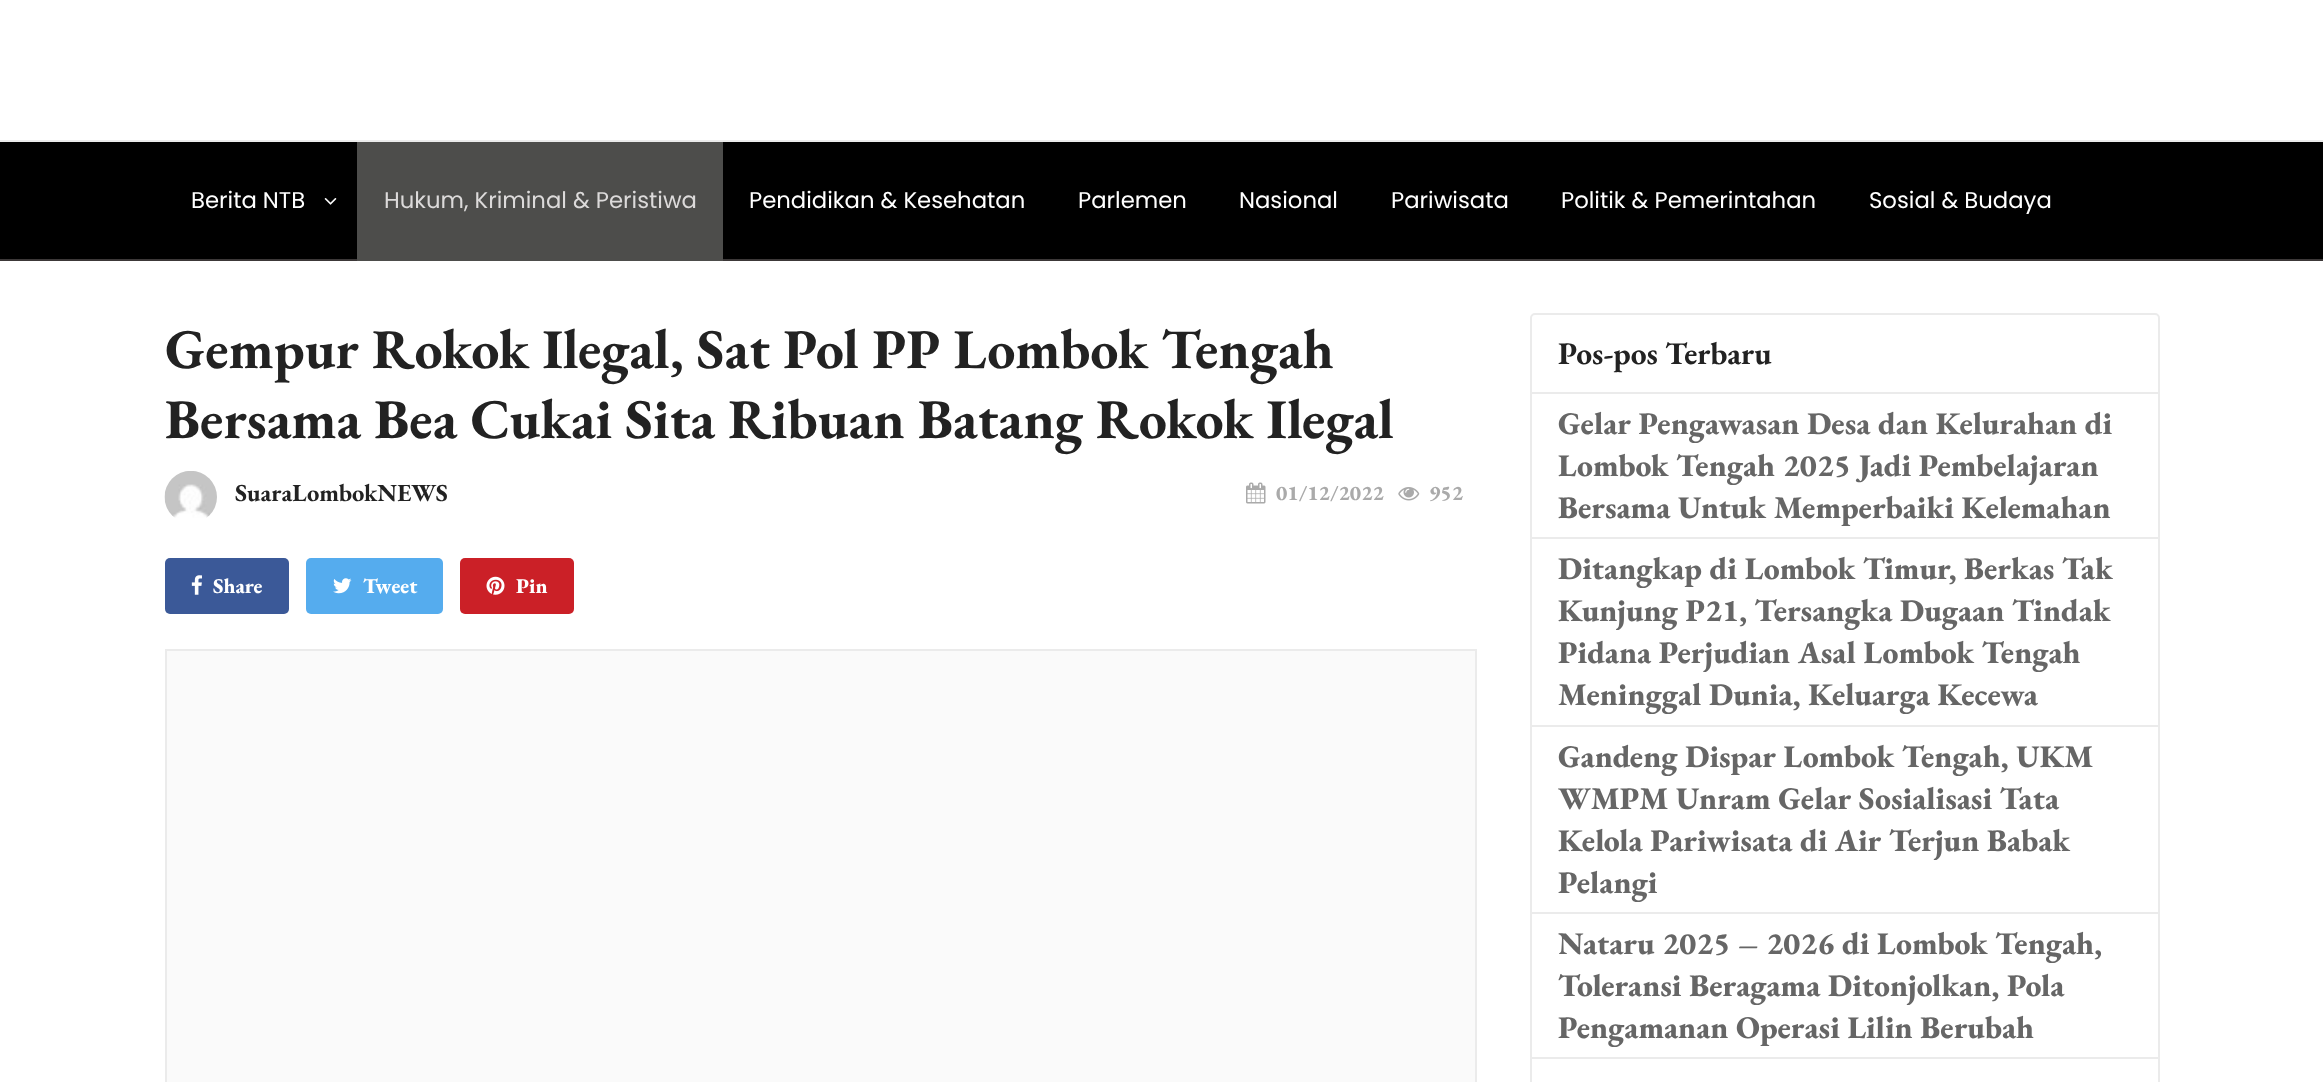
(async () => {
  const canvas = document.querySelector("canvas");
  canvas.width = 2323;
  canvas.height = 1082;
  const ctx = canvas.getContext("2d");
  ctx.miterLimit = 4;
  ctx.fontKerning = "normal";
  async function loadImage(src) {
    const img = new Image();
    img.src = src;
    await img.decode();
    return img;
  }

  ctx.fillStyle = "#ffffff";
  ctx.fillRect(0, 0, 2323, 1082);
  for (const [x, y, w, h, color] of [
    [0, 140, 2323, 2, "#ebebeb"],
    [0, 142, 2323, 117, "#000000"],
    [0, 259, 2323, 2, "#3c3838"],
  ]) {
    ctx.fillStyle = color;
    ctx.fillRect(x, y, w, h);
  }
  ctx.drawImage(await loadImage("img/1.png"), 324, 198, 13, 7);
  ctx.fillStyle = "#4d4d4b";
  ctx.fillRect(357, 142, 366, 119);
  ctx.drawImage(await loadImage("img/2.png"), 164, 471, 53, 47);
  ctx.drawImage(await loadImage("img/3.png"), 1246, 482, 20, 22);
  ctx.drawImage(await loadImage("img/4.png"), 1398, 487, 22, 14);
  ctx.fillStyle = "#3b5998";
  ctx.beginPath();
  ctx.roundRect(165, 558, 124, 56, 5);
  ctx.fill();
  ctx.drawImage(await loadImage("img/5.png"), 191, 575, 11, 20);
  ctx.fillStyle = "#55acee";
  ctx.beginPath();
  ctx.roundRect(306, 558, 137, 56, 5);
  ctx.fill();
  ctx.drawImage(await loadImage("img/6.png"), 333, 578, 19, 16);
  ctx.fillStyle = "#cb2027";
  ctx.beginPath();
  ctx.roundRect(460, 558, 114, 56, 5);
  ctx.fill();
  ctx.drawImage(await loadImage("img/7.png"), 486, 576, 19, 19);
  ctx.fillStyle = "#fafafa";
  ctx.beginPath();
  ctx.rect(166, 650, 1310, 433);
  ctx.fill();
  ctx.strokeStyle = "#ebebeb";
  ctx.lineWidth = 2;
  ctx.stroke();
  ctx.beginPath();
  ctx.roundRect(1531, 314, 628, 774, 4);
  ctx.stroke();
  for (const [x, y, w, h, color] of [
    [1531, 392, 627, 2, "#ebebeb"],
    [1531, 537, 627, 2, "#ebebeb"],
    [1531, 725, 627, 2, "#ebebeb"],
    [1531, 912, 627, 2, "#ebebeb"],
    [1531, 1057, 627, 2, "#ebebeb"],
  ]) {
    ctx.fillStyle = color;
    ctx.fillRect(x, y, w, h);
  }
  ctx.font = "22.75px Poppins";
  ctx.fillStyle = "#ffffff";
  ctx.fillText("Berita NTB", 191, 208);
  ctx.fillStyle = "#dcdada";
  ctx.fillText("Hukum, Kriminal & Peristiwa", 384, 208);
  ctx.fillStyle = "#ffffff";
  for (const [text, x, y] of [
    ["Pendidikan & Kesehatan", 749, 208],
    ["Parlemen", 1078, 208],
    ["Nasional", 1239, 208],
    ["Pariwisata", 1391, 208],
    ["Politik & Pemerintahan", 1561, 208],
    ["Sosial & Budaya", 1869, 208],
  ]) {
    ctx.fillText(text, x, y);
  }
  ctx.font = "bold 56px EB Garamond";
  ctx.fillStyle = "#222222";
  ctx.fillText("Gempur Rokok Ilegal, Sat Pol PP Lombok Tengah", 165, 368);
  ctx.fillText("Bersama Bea Cukai Sita Ribuan Batang Rokok Ilegal", 165, 438);
  ctx.font = "bold 24.5px EB Garamond";
  ctx.fillText("SuaraLombokNEWS", 235, 501);
  ctx.font = "800 21px EB Garamond";
  ctx.fillStyle = "#aaaaaa";
  ctx.fillText("01/12/2022", 1276, 500);
  ctx.fillText("952", 1429, 500);
  ctx.fillStyle = "#ffffff";
  for (const [text, x, y] of [
    ["Share", 213, 593],
    ["Tweet", 363, 593],
    ["Pin", 516, 593],
  ]) {
    ctx.fillText(text, x, y);
  }
  ctx.font = "bold 31.5px EB Garamond";
  ctx.fillStyle = "#222222";
  ctx.fillText("Pos-pos Terbaru", 1558, 364);
  ctx.font = "800 31.5px EB Garamond";
  ctx.fillStyle = "#666666";
  for (const [text, x, y] of [
    ["Gelar Pengawasan Desa dan Kelurahan di", 1558, 434],
    ["Lombok Tengah 2025 Jadi Pembelajaran", 1558, 476],
    ["Bersama Untuk Memperbaiki Kelemahan", 1558, 518],
    ["Ditangkap di Lombok Timur, Berkas Tak", 1558, 579],
    ["Kunjung P21, Tersangka Dugaan Tindak", 1558, 621],
    ["Pidana Perjudian Asal Lombok Tengah", 1558, 663],
    ["Meninggal Dunia, Keluarga Kecewa", 1558, 705],
    ["Gandeng Dispar Lombok Tengah, UKM", 1558, 767],
    ["WMPM Unram Gelar Sosialisasi Tata", 1558, 809],
    ["Kelola Pariwisata di Air Terjun Babak", 1558, 851],
    ["Pelangi", 1558, 893],
    ["Nataru 2025 – 2026 di Lombok Tengah,", 1558, 954],
    ["Toleransi Beragama Ditonjolkan, Pola", 1558, 996],
    ["Pengamanan Operasi Lilin Berubah", 1558, 1038],
  ]) {
    ctx.fillText(text, x, y);
  }
})();
